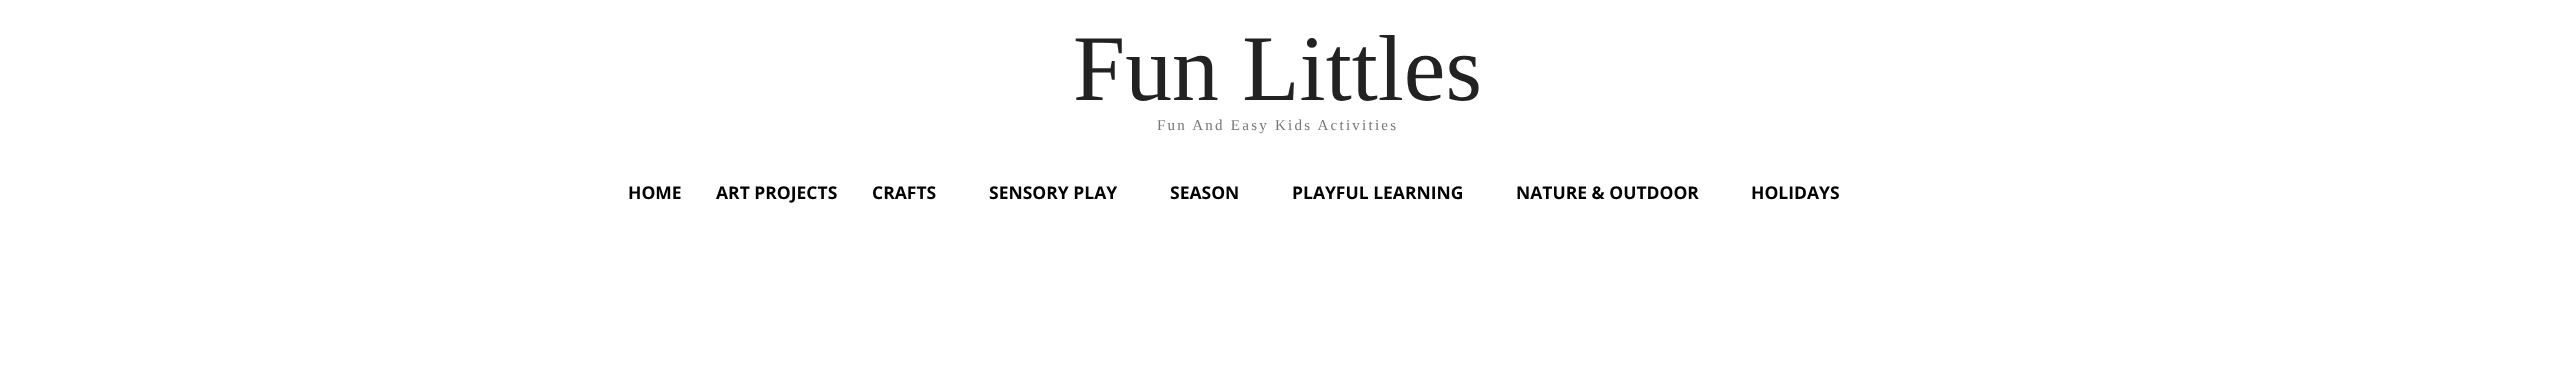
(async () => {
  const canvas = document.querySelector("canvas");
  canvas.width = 2554;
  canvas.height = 377;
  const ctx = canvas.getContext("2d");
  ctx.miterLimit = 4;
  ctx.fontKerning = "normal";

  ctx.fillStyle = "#ffffff";
  ctx.fillRect(0, 0, 2554, 377);
  ctx.font = "93.75px Liberation Serif";
  ctx.fillStyle = "#222222";
  ctx.fillText("Fun Littles", 1073, 100);
  ctx.letterSpacing = "2.25px";
  ctx.font = "15px Liberation Serif";
  ctx.fillStyle = "#777777";
  ctx.fillText("Fun And Easy Kids Activities", 1157, 130);
  ctx.letterSpacing = "0px";
  ctx.font = "bold 17.5px Open Sans";
  ctx.fillStyle = "#000000";
  for (const [text, x, y] of [
    ["HOME", 628, 199],
    ["ART PROJECTS", 716, 199],
    ["CRAFTS", 872, 199],
    ["SENSORY PLAY", 989, 199],
    ["SEASON", 1170, 199],
    ["PLAYFUL LEARNING", 1292, 199],
    ["NATURE & OUTDOOR", 1516, 199],
    ["HOLIDAYS", 1751, 199],
  ]) {
    ctx.fillText(text, x, y);
  }
})();
